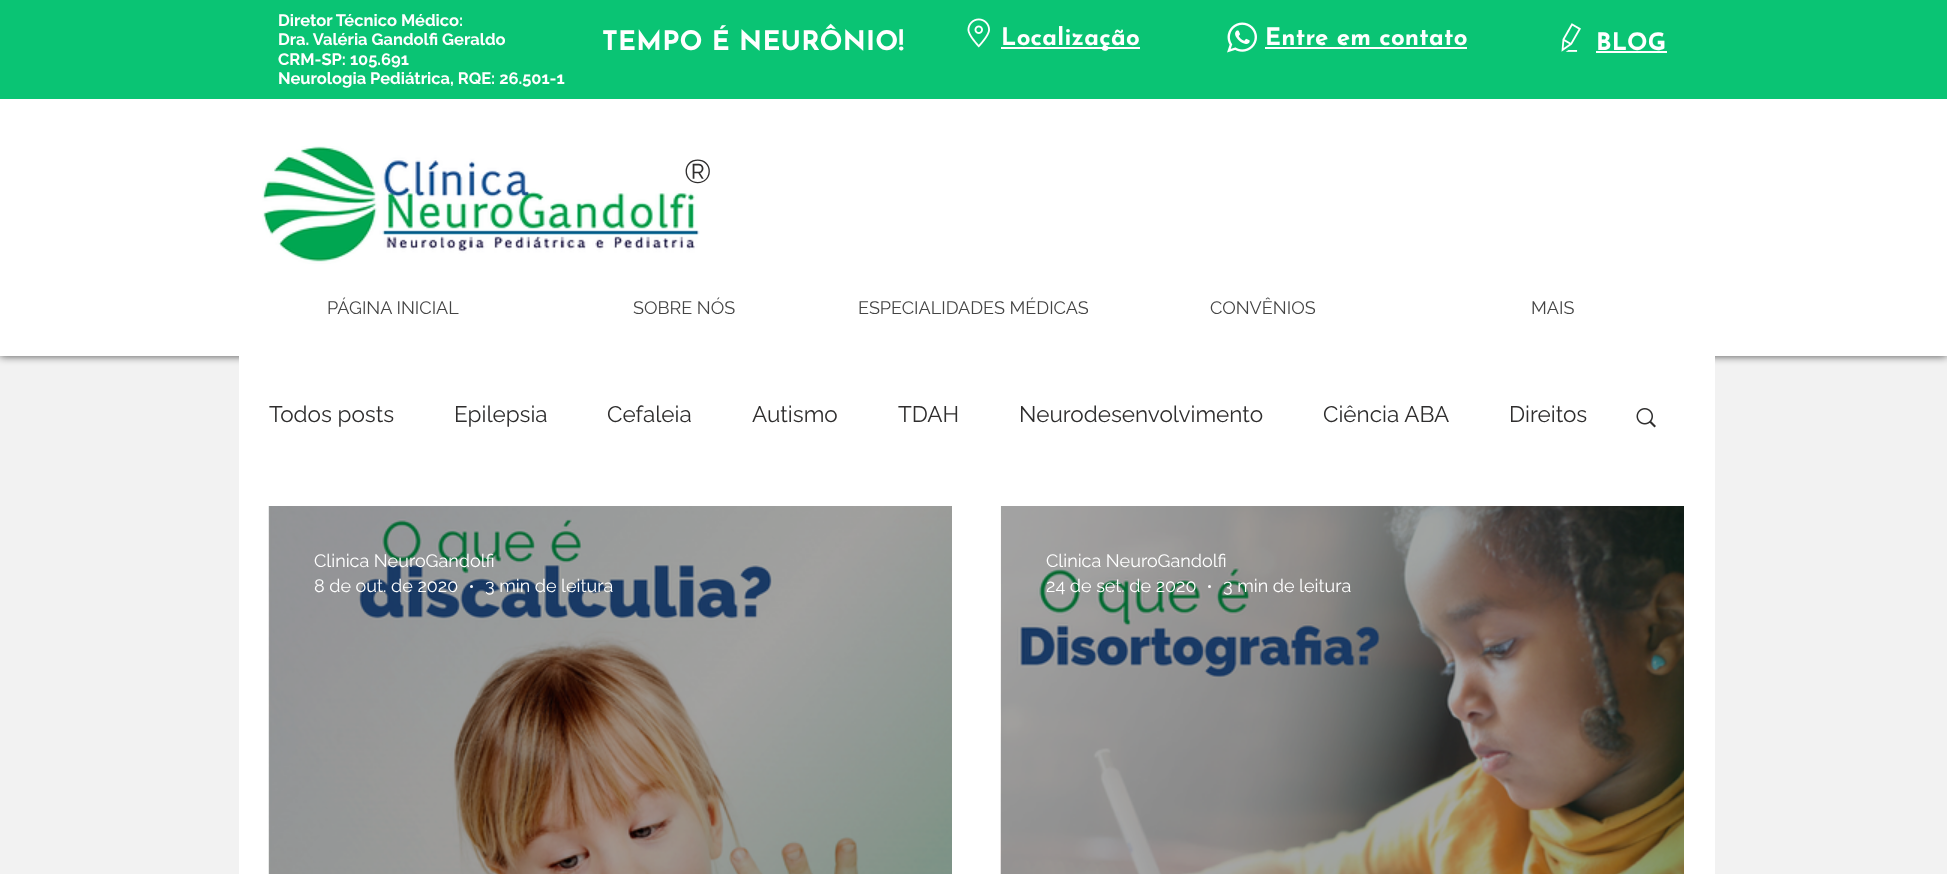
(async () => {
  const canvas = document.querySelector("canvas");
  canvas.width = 1947;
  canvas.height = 874;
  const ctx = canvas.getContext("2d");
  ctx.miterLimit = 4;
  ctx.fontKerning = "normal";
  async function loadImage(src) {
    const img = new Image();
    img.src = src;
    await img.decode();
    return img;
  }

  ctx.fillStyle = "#f2f2f2";
  ctx.fillRect(0, 0, 1947, 874);
  ctx.fillStyle = "rgba(0, 0, 0, 0.7)";
  ctx.filter = "blur(4px)";
  ctx.beginPath();
  ctx.rect(0, 0, 1947, 356);
  ctx.fill();
  ctx.filter = "none";
  ctx.fillStyle = "#ffffff";
  ctx.fillRect(0, 99, 1947, 257);
  ctx.fillStyle = "#0ac474";
  ctx.fillRect(0, 0, 1947, 99);
  ctx.drawImage(await loadImage("img/1.png"), 967, 18, 23, 30);
  ctx.fillStyle = "#ffffff";
  ctx.fillRect(1001, 47, 139, 2);
  ctx.drawImage(await loadImage("img/2.png"), 1227, 22, 30, 31);
  ctx.fillRect(1265, 47, 202, 2);
  ctx.drawImage(await loadImage("img/3.png"), 1561, 23, 20, 29);
  ctx.fillRect(1596, 51, 71, 2);
  ctx.drawImage(await loadImage("img/4.png"), 262, 146, 438, 118);
  ctx.fillRect(239, 356, 1476, 518);
  ctx.drawImage(await loadImage("img/5.png"), 1636, 408, 20, 20);
  ctx.drawImage(await loadImage("img/6.png"), 268, 506, 684, 368);
  ctx.beginPath();
  ctx.arc(471.5, 586.5, 1.5, 0, Math.PI * 2);
  ctx.fill();
  ctx.drawImage(await loadImage("img/7.png"), 1000, 506, 684, 368);
  ctx.beginPath();
  ctx.arc(1209.5, 586.5, 1.5, 0, Math.PI * 2);
  ctx.fill();
  ctx.font = "bold 16.5px Raleway";
  for (const [text, x, y] of [
    ["Diretor Técnico Médico:", 278, 26],
    ["Dra. Valéria Gandolfi Geraldo", 278, 45],
    ["CRM-SP: 105.691", 278, 65],
    ["Neurologia Pediátrica, RQE: 26.501-1", 278, 84],
  ]) {
    ctx.fillText(text, x, y);
  }
  ctx.letterSpacing = "0.25px";
  ctx.font = "100 27px Josefin Sans";
  ctx.fillText("TEMPO É NEURÔNIO!", 602, 50);
  ctx.font = "100 24px Josefin Sans";
  for (const [text, x, y] of [
    ["Localização", 1001, 45],
    ["Entre em contato", 1265, 45],
    ["BLOG", 1596, 50],
  ]) {
    ctx.fillText(text, x, y);
  }
  ctx.letterSpacing = "0px";
  ctx.font = "33px Raleway";
  ctx.fillStyle = "#2f2e2e";
  ctx.fillText("®", 684, 183);
  ctx.font = "18px Raleway";
  ctx.fillStyle = "#444444";
  for (const [text, x, y] of [
    ["PÁGINA INICIAL", 327, 314],
    ["SOBRE NÓS", 633, 314],
    ["ESPECIALIDADES MÉDICAS", 858, 314],
    ["CONVÊNIOS", 1210, 314],
    ["MAIS", 1531, 314],
  ]) {
    ctx.fillText(text, x, y);
  }
  ctx.font = "22.5px Raleway";
  ctx.fillStyle = "#2f2e2e";
  for (const [text, x, y] of [
    ["Todos posts", 269, 422],
    ["Epilepsia", 454, 422],
    ["Cefaleia", 607, 422],
    ["Autismo", 752, 422],
    ["TDAH", 898, 422],
    ["Neurodesenvolvimento", 1019, 422],
    ["Ciência ABA", 1323, 422],
    ["Direitos", 1509, 422],
  ]) {
    ctx.fillText(text, x, y);
  }
  ctx.font = "18px Raleway";
  ctx.fillStyle = "#ffffff";
  for (const [text, x, y] of [
    ["Clinica NeuroGandolfi", 314, 567],
    ["8 de out. de 2020", 314, 592],
    ["3 min de leitura", 485, 592],
    ["Clinica NeuroGandolfi", 1046, 567],
    ["24 de set. de 2020", 1046, 592],
    ["3 min de leitura", 1223, 592],
  ]) {
    ctx.fillText(text, x, y);
  }
})();
